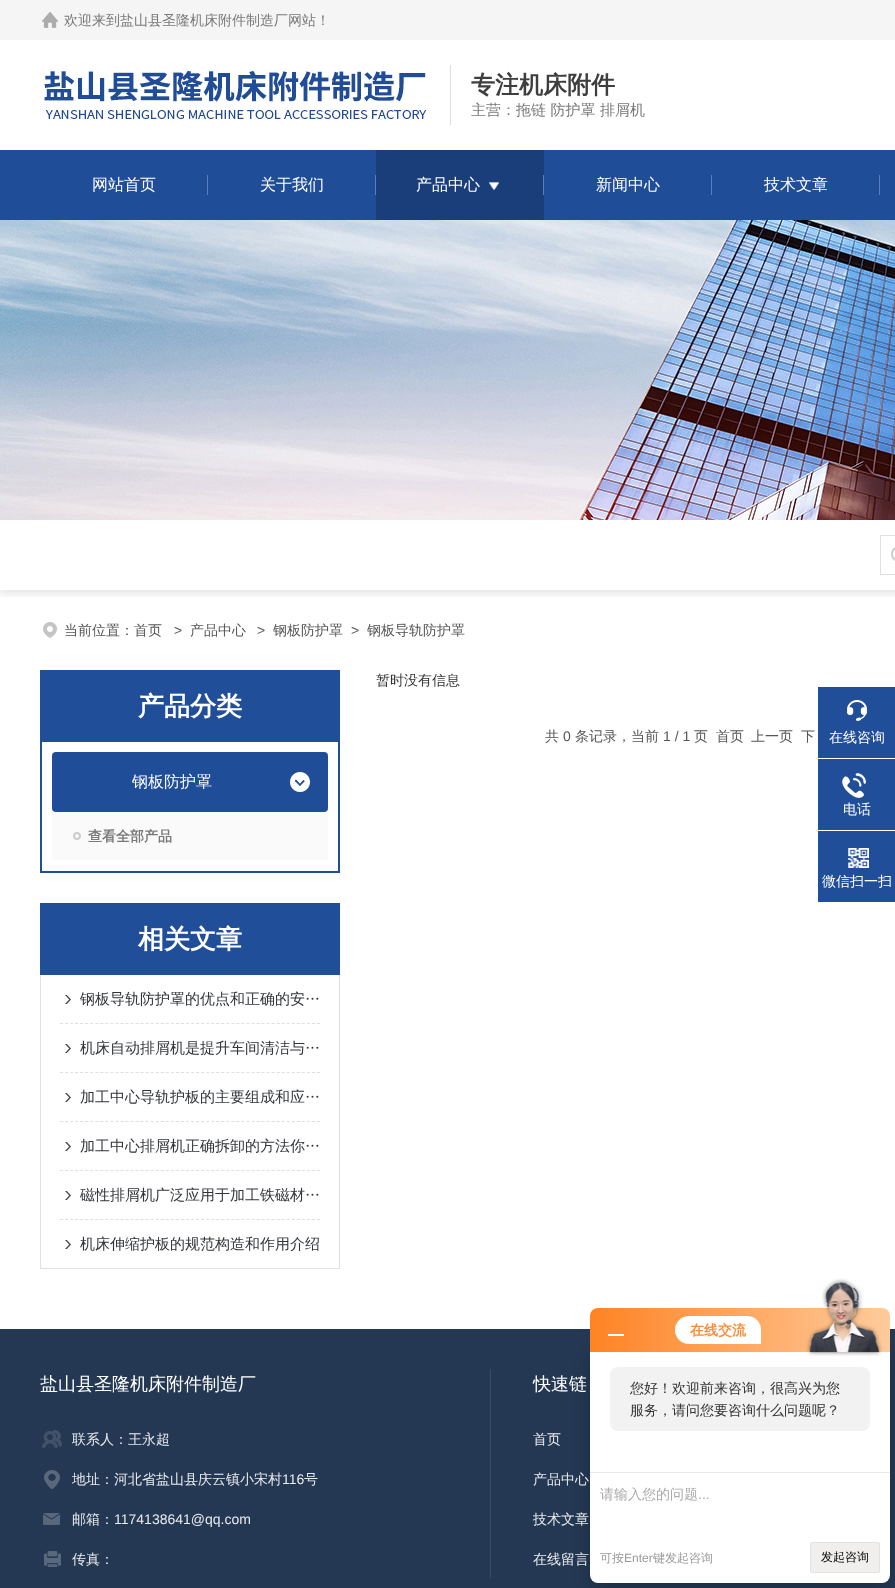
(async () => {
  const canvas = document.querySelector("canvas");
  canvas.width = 895;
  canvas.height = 1588;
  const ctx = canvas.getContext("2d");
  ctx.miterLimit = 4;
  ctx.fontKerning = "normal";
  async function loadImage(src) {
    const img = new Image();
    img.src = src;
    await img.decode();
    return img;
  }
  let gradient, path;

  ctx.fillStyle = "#ffffff";
  ctx.fillRect(0, 0, 895, 1588);
  ctx.fillStyle = "#f5f5f5";
  ctx.fillRect(0, 0, 895, 40);
  ctx.drawImage(await loadImage("img/1.png"), 42, 12, 16, 16);
  ctx.drawImage(await loadImage("img/2.png"), 44, 69, 383, 55);
  for (const [x, y, w, h, color] of [
    [450, 65, 1, 60, "#dfdfdf"],
    [0, 150, 895, 70, "#1f4d98"],
    [207, 175, 1, 20, "#597fc0"],
    [375, 175, 1, 20, "#597fc0"],
    [376, 150, 168, 70, "#193e7a"],
    [543, 175, 1, 20, "#597fc0"],
  ]) {
    ctx.fillStyle = color;
    ctx.fillRect(x, y, w, h);
  }
  ctx.drawImage(await loadImage("img/3.png"), 489, 181, 10, 10);
  ctx.fillRect(711, 175, 1, 20);
  ctx.fillRect(879, 175, 1, 20);
  ctx.drawImage(await loadImage("img/4.png"), 0, 220, 895, 300);
  ctx.save();
  ctx.beginPath();
  ctx.rect(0, 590, 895, 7);
  ctx.clip();
  ctx.fillStyle = "rgba(0, 0, 0, 0.1)";
  ctx.filter = "blur(4px)";
  ctx.beginPath();
  ctx.rect(0, 524, 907, 70);
  ctx.fill();
  ctx.filter = "none";
  ctx.restore();
  ctx.drawImage(await loadImage("img/5.png"), 891, 547, 4, 14);
  for (const [x, y, w, h, color] of [
    [880, 535, 15, 1, "#dfdfdf"],
    [880, 574, 15, 1, "#dfdfdf"],
    [880, 535, 1, 40, "#dfdfdf"],
  ]) {
    ctx.fillStyle = color;
    ctx.fillRect(x, y, w, h);
  }
  ctx.drawImage(await loadImage("img/6.png"), 43, 622, 14, 16);
  for (const [x, y, w, h, color] of [
    [40, 670, 300, 72, "#204e99"],
    [338, 742, 2, 131, "#204e99"],
    [40, 871, 300, 2, "#204e99"],
    [40, 742, 2, 131, "#204e99"],
  ]) {
    ctx.fillStyle = color;
    ctx.fillRect(x, y, w, h);
  }
  ctx.fillStyle = "#1f4d98";
  ctx.beginPath();
  ctx.roundRect(52, 752, 276, 60, 4);
  ctx.fill();
  ctx.drawImage(await loadImage("img/7.png"), 290, 772, 20, 20);
  ctx.fillStyle = "#fafafa";
  ctx.fillRect(52, 812, 276, 48);
  ctx.drawImage(await loadImage("img/8.png"), 73, 832, 8, 8);
  for (const [x, y, w, h, color] of [
    [40, 903, 300, 72, "#204e99"],
    [339, 975, 1, 294, "#dfdfdf"],
    [40, 1268, 300, 1, "#dfdfdf"],
    [40, 975, 1, 294, "#dfdfdf"],
  ]) {
    ctx.fillStyle = color;
    ctx.fillRect(x, y, w, h);
  }
  path = new Path2D("M60 1023.5H320");
  ctx.strokeStyle = "#dfdfdf";
  ctx.setLineDash([3, 2.04]);
  ctx.stroke(path);
  ctx.drawImage(await loadImage("img/9.png"), 65, 995, 6, 9);
  path = new Path2D("M60 1072.5H320");
  ctx.stroke(path);
  ctx.drawImage(await loadImage("img/9.png"), 65, 1044, 6, 9);
  path = new Path2D("M60 1121.5H320");
  ctx.stroke(path);
  ctx.drawImage(await loadImage("img/9.png"), 65, 1093, 6, 9);
  path = new Path2D("M60 1170.5H320");
  ctx.stroke(path);
  ctx.drawImage(await loadImage("img/9.png"), 65, 1142, 6, 9);
  path = new Path2D("M60 1219.5H320");
  ctx.stroke(path);
  ctx.drawImage(await loadImage("img/9.png"), 65, 1191, 6, 9);
  ctx.drawImage(await loadImage("img/9.png"), 65, 1240, 6, 9);
  ctx.fillStyle = "#204e99";
  ctx.fillRect(818, 687, 77, 71);
  ctx.drawImage(await loadImage("img/10.png"), 847, 700, 20, 21);
  ctx.fillRect(818, 759, 77, 71);
  ctx.drawImage(await loadImage("img/11.png"), 842, 773, 24, 25);
  ctx.fillRect(818, 831, 77, 71);
  ctx.drawImage(await loadImage("img/12.png"), 848, 848, 21, 20);
  ctx.fillStyle = "#243853";
  ctx.fillRect(0, 1329, 895, 259);
  ctx.drawImage(await loadImage("img/13.png"), 42, 1430, 20, 18);
  ctx.drawImage(await loadImage("img/14.png"), 44, 1470, 16, 19);
  ctx.drawImage(await loadImage("img/15.png"), 43, 1513, 17, 12);
  ctx.drawImage(await loadImage("img/16.png"), 44, 1551, 17, 16);
  ctx.fillStyle = "#3a4c64";
  ctx.fillRect(490, 1369, 1, 210);
  ctx.fillStyle = "rgba(0, 0, 0, 0.2)";
  ctx.filter = "blur(8px)";
  ctx.beginPath();
  ctx.roundRect(590, 1356, 300, 231, 8);
  ctx.fill();
  ctx.filter = "none";
  gradient = ctx.createLinearGradient(590, 1330, 890, 1330);
  gradient.addColorStop(0, "#ff8324");
  gradient.addColorStop(1, "#fecb9c");
  ctx.fillStyle = gradient;
  ctx.beginPath();
  ctx.roundRect(590, 1308, 300, 44, [8, 8, 0, 0]);
  ctx.fill();
  ctx.fillStyle = "#ffffff";
  ctx.fillRect(608, 1334, 16, 2);
  ctx.beginPath();
  ctx.roundRect(675, 1316, 86, 28, [14, 14, 0, 14]);
  ctx.fill();
  ctx.beginPath();
  ctx.roundRect(590, 1352, 300, 231, [0, 0, 8, 8]);
  ctx.fill();
  ctx.drawImage(await loadImage("img/17.png"), 806, 1278, 76, 78);
  ctx.fillStyle = "#f2f2f2";
  ctx.beginPath();
  ctx.roundRect(610, 1367, 260, 64, 8);
  ctx.fill();
  ctx.fillStyle = "#eaeaea";
  ctx.fillRect(590, 1472, 300, 1);
  ctx.fillStyle = "#f0efed";
  ctx.beginPath();
  ctx.roundRect(810.5, 1542.5, 69, 30, 1.5);
  ctx.fill();
  ctx.strokeStyle = "#e2e2e2";
  ctx.setLineDash([]);
  ctx.stroke();
  ctx.font = "500 14px WenQuanYi Zen Hei";
  ctx.fillStyle = "#797979";
  ctx.fillText("欢迎来到盐山县圣隆机床附件制造厂网站！", 64, 25);
  ctx.font = "bold 24px WenQuanYi Zen Hei";
  ctx.fillStyle = "#3e3e3e";
  ctx.fillText("专注机床附件", 471, 93);
  ctx.font = "500 15px WenQuanYi Zen Hei";
  ctx.fillStyle = "#797979";
  ctx.fillText("主营：拖链 防护罩 排屑机", 471, 115);
  ctx.font = "500 16px WenQuanYi Zen Hei";
  ctx.fillStyle = "#ffffff";
  for (const [text, x, y] of [
    ["网站首页", 92, 190],
    ["关于我们", 260, 190],
    ["产品中心", 416, 190],
    ["新闻中心", 596, 190],
    ["技术文章", 764, 190],
  ]) {
    ctx.fillText(text, x, y);
  }
  ctx.font = "500 14px WenQuanYi Zen Hei";
  ctx.fillStyle = "#555555";
  ctx.fillText("当前位置：首页", 64, 635);
  ctx.font = "14px Liberation Sans";
  ctx.fillText(">", 174, 635);
  ctx.font = "500 14px WenQuanYi Zen Hei";
  ctx.fillText("产品中心", 190, 635);
  ctx.font = "14px Liberation Sans";
  ctx.fillText(">", 257, 635);
  ctx.font = "500 14px WenQuanYi Zen Hei";
  ctx.fillText("钢板防护罩", 273, 635);
  ctx.font = "14px Liberation Sans";
  ctx.fillText(">", 351, 635);
  ctx.font = "500 14px WenQuanYi Zen Hei";
  ctx.fillText("钢板导轨防护罩", 367, 635);
  ctx.font = "bold 26px WenQuanYi Zen Hei";
  ctx.fillStyle = "#ffffff";
  ctx.fillText("产品分类", 138, 715);
  ctx.font = "500 16px WenQuanYi Zen Hei";
  ctx.fillText("钢板防护罩", 132, 787);
  ctx.font = "bold 14px WenQuanYi Zen Hei";
  ctx.fillStyle = "#797979";
  ctx.fillText("查看全部产品", 88, 841);
  ctx.font = "bold 26px WenQuanYi Zen Hei";
  ctx.fillStyle = "#ffffff";
  ctx.fillText("相关文章", 138, 948);
  ctx.font = "500 15px WenQuanYi Zen Hei";
  ctx.fillStyle = "#32353a";
  for (const [text, x, y] of [
    ["钢板导轨防护罩的优点和正确的安…", 80, 1004],
    ["机床自动排屑机是提升车间清洁与…", 80, 1053],
    ["加工中心导轨护板的主要组成和应…", 80, 1102],
    ["加工中心排屑机正确拆卸的方法你…", 80, 1151],
    ["磁性排屑机广泛应用于加工铁磁材…", 80, 1200],
    ["机床伸缩护板的规范构造和作用介绍", 80, 1249],
  ]) {
    ctx.fillText(text, x, y);
  }
  ctx.font = "500 14px WenQuanYi Zen Hei";
  ctx.fillStyle = "#333333";
  ctx.fillText("暂时没有信息", 376, 685);
  ctx.fillStyle = "#555555";
  ctx.fillText("共", 545, 741);
  ctx.font = "14px Liberation Sans";
  ctx.fillText("0", 563, 741);
  ctx.font = "500 14px WenQuanYi Zen Hei";
  ctx.fillText("条记录，当前", 575, 741);
  ctx.font = "14px Liberation Sans";
  ctx.fillText("1 / 1", 663, 741);
  ctx.font = "500 14px WenQuanYi Zen Hei";
  for (const [text, x, y] of [
    ["页", 694, 741],
    ["首页", 716, 741],
    ["上一页", 751, 741],
    ["下", 801, 741],
  ]) {
    ctx.fillText(text, x, y);
  }
  ctx.fillStyle = "#ffffff";
  for (const [text, x, y] of [
    ["在线咨询", 829, 742],
    ["电话", 843, 814],
    ["微信扫一扫", 822, 886],
  ]) {
    ctx.fillText(text, x, y);
  }
  ctx.font = "500 18px WenQuanYi Zen Hei";
  ctx.fillText("盐山县圣隆机床附件制造厂", 40, 1390);
  ctx.font = "500 14px WenQuanYi Zen Hei";
  ctx.fillStyle = "#e9ebee";
  ctx.fillText("联系人：王永超", 72, 1444);
  ctx.fillText("地址：河北省盐山县庆云镇小宋村", 72, 1484);
  ctx.font = "14px Liberation Sans";
  ctx.fillText("116", 282, 1484);
  ctx.font = "500 14px WenQuanYi Zen Hei";
  ctx.fillText("号", 304, 1484);
  ctx.fillText("邮箱：", 72, 1524);
  ctx.font = "14px Liberation Sans";
  ctx.fillText("1174138641@qq.com", 114, 1524);
  ctx.font = "500 14px WenQuanYi Zen Hei";
  ctx.fillText("传真：", 72, 1564);
  ctx.font = "500 18px WenQuanYi Zen Hei";
  ctx.fillStyle = "#ffffff";
  ctx.fillText("快速链", 533, 1390);
  ctx.font = "500 14px WenQuanYi Zen Hei";
  ctx.fillStyle = "#e9ebee";
  for (const [text, x, y] of [
    ["首页", 533, 1444],
    ["产品中心", 533, 1484],
    ["技术文章", 533, 1524],
    ["在线留言", 533, 1564],
  ]) {
    ctx.fillText(text, x, y);
  }
  ctx.font = "bold 14px WenQuanYi Zen Hei";
  ctx.fillStyle = "#fb8b36";
  ctx.fillText("在线交流", 690, 1335);
  ctx.font = "500 14px WenQuanYi Zen Hei";
  ctx.fillStyle = "#333333";
  ctx.fillText("您好！欢迎前来咨询，很高兴为您", 630, 1393);
  ctx.fillText("服务，请问您要咨询什么问题呢？", 630, 1415);
  ctx.fillStyle = "#aaaaaa";
  ctx.fillText("请输入您的问题", 600, 1499);
  ctx.font = "14px Liberation Sans";
  ctx.fillText("...", 698, 1499);
  ctx.font = "500 12px WenQuanYi Zen Hei";
  ctx.fillStyle = "#999999";
  ctx.fillText("可按", 600, 1562);
  ctx.font = "12px Liberation Sans";
  ctx.fillText("Enter", 624, 1562);
  ctx.font = "500 12px WenQuanYi Zen Hei";
  ctx.fillText("键发起咨询", 653, 1562);
  ctx.fillStyle = "#000000";
  ctx.fillText("发起咨询", 821, 1561);
})();
